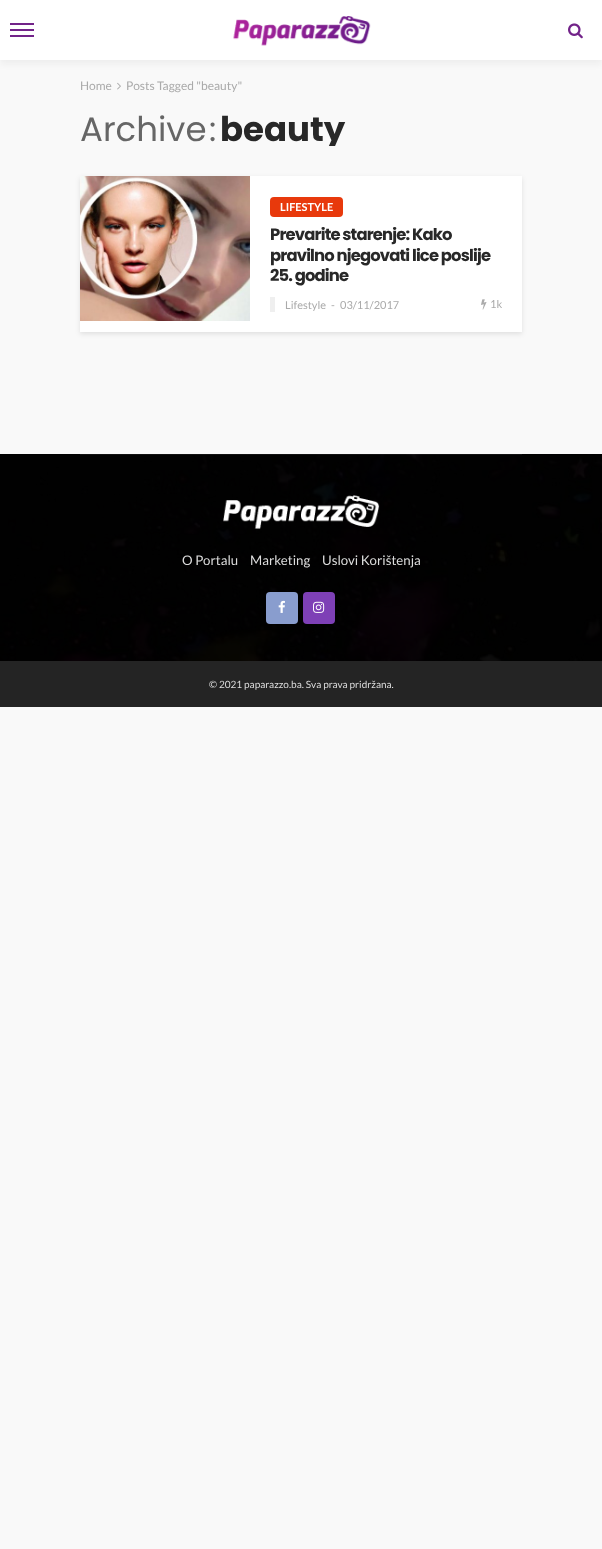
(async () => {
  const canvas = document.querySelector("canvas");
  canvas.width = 602;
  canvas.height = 1549;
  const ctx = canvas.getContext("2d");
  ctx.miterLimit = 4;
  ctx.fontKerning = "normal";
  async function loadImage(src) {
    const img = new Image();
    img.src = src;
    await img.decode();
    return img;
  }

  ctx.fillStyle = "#f9f9f9";
  ctx.fillRect(0, 0, 602, 1549);
  ctx.fillStyle = "rgba(28, 28, 28, 0.05)";
  ctx.filter = "blur(3px)";
  ctx.beginPath();
  ctx.rect(0, 4, 602, 60);
  ctx.fill();
  ctx.filter = "none";
  for (const [x, y, w, h, color] of [
    [0, 0, 602, 60, "#ffffff"],
    [10, 29, 24, 2, "#722389"],
    [10, 23, 24, 2, "#722389"],
    [10, 35, 24, 2, "#722389"],
  ]) {
    ctx.fillStyle = color;
    ctx.fillRect(x, y, w, h);
  }
  ctx.drawImage(await loadImage("img/1.png"), 233, 16, 138, 30);
  ctx.drawImage(await loadImage("img/2.png"), 568, 23, 15, 16);
  ctx.drawImage(await loadImage("img/3.png"), 117, 82, 4, 8);
  ctx.fillStyle = "rgba(0, 0, 0, 0.1)";
  ctx.filter = "blur(2.5px)";
  ctx.beginPath();
  ctx.rect(80, 178, 442, 156);
  ctx.fill();
  ctx.filter = "none";
  ctx.fillStyle = "#ffffff";
  ctx.fillRect(80, 176, 442, 156);
  ctx.drawImage(await loadImage("img/4.png"), 80, 176, 170, 145);
  ctx.fillStyle = "#e8390c";
  ctx.beginPath();
  ctx.roundRect(270, 197, 73, 20, 4);
  ctx.fill();
  ctx.fillStyle = "#efefef";
  ctx.fillRect(270, 297, 5, 15);
  ctx.drawImage(await loadImage("img/5.png"), 481, 299, 6, 11);
  ctx.drawImage(await loadImage("img/6.png"), 0, 454, 602, 207);
  ctx.fillStyle = "rgba(255, 255, 255, 0.07)";
  ctx.fillRect(80, 454, 442, 1);
  ctx.drawImage(await loadImage("img/7.png"), 223, 495, 157, 34);
  ctx.fillStyle = "#899dce";
  ctx.beginPath();
  ctx.roundRect(266, 592, 32, 32, 4);
  ctx.fill();
  ctx.drawImage(await loadImage("img/8.png"), 278, 600, 7, 13);
  ctx.fillStyle = "#7e40b6";
  ctx.beginPath();
  ctx.roundRect(303, 592, 32, 32, 4);
  ctx.fill();
  ctx.drawImage(await loadImage("img/9.png"), 313, 601, 12, 12);
  ctx.fillStyle = "#242424";
  ctx.fillRect(0, 661, 602, 46);
  ctx.font = "12px Lato";
  ctx.fillStyle = "#aaaaaa";
  ctx.fillText("Home", 80, 90);
  ctx.fillText("Posts Tagged \"beauty\"", 126, 90);
  ctx.font = "34px Poppins";
  ctx.fillStyle = "#666666";
  ctx.fillText("Archive", 80, 141);
  ctx.fillText(":", 209, 141);
  ctx.save();
  ctx.beginPath();
  ctx.rect(0, 112, 602, 34);
  ctx.clip();
  ctx.font = "bold 34px Poppins";
  ctx.fillStyle = "#282828";
  ctx.fillText("beauty", 220, 141);
  ctx.restore();
  ctx.font = "bold 11px Lato";
  ctx.fillStyle = "#ffffff";
  ctx.fillText("LIFESTYLE", 280, 211);
  ctx.letterSpacing = "-0.85px";
  ctx.font = "bold 16.4px Poppins";
  ctx.fillStyle = "#282828";
  for (const [text, x, y] of [
    ["Prevarite starenje: Kako", 270, 240],
    ["pravilno njegovati lice poslije", 270, 261],
    ["25. godine", 270, 281],
  ]) {
    ctx.fillText(text, x, y);
  }
  ctx.letterSpacing = "0px";
  ctx.font = "11px Lato";
  ctx.fillStyle = "#aaaaaa";
  for (const [text, x, y] of [
    ["Lifestyle", 285, 309],
    ["-", 331, 309],
    ["03/11/2017", 340, 309],
    ["1k", 490, 308],
  ]) {
    ctx.fillText(text, x, y);
  }
  ctx.font = "13.25px Lato";
  ctx.fillStyle = "#dddddd";
  for (const [text, x, y] of [
    ["O Portalu", 182, 565],
    ["Marketing", 250, 565],
    ["Uslovi Korištenja", 322, 565],
  ]) {
    ctx.fillText(text, x, y);
  }
  ctx.font = "10px Lato";
  ctx.fillText("© 2021 paparazzo.ba. Sva prava pridržana.", 209, 688);
})();
